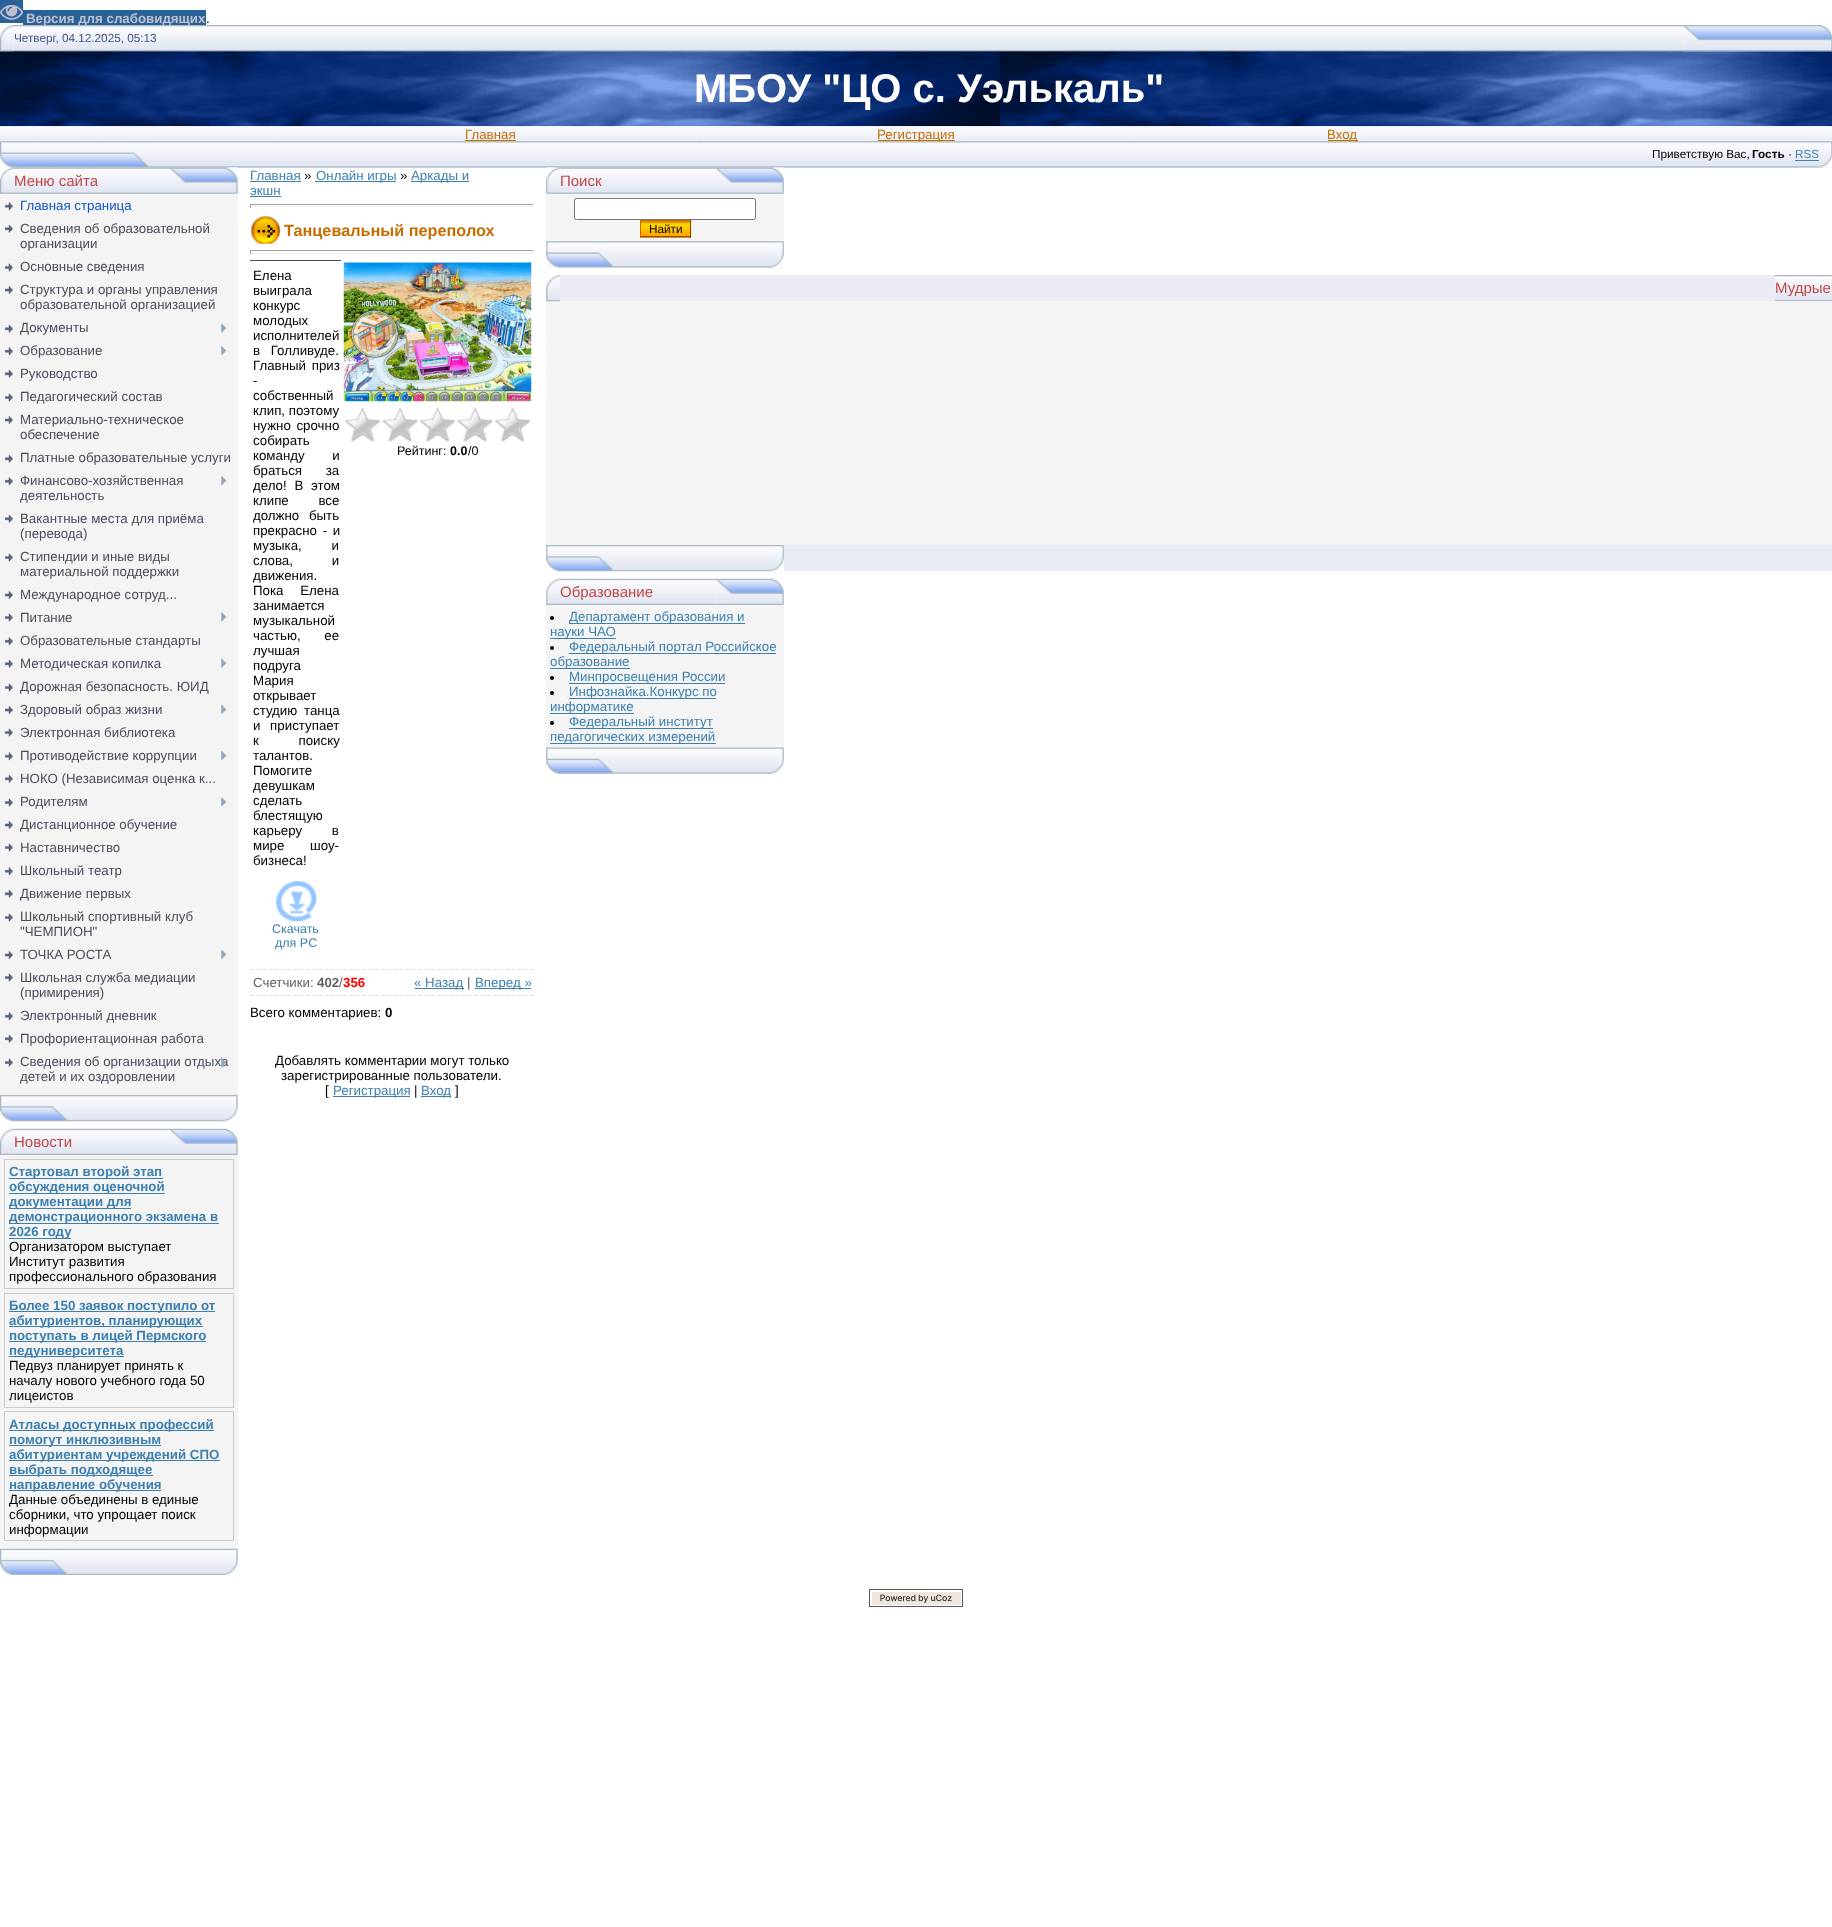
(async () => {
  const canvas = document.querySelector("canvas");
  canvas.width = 1832;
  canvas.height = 1927;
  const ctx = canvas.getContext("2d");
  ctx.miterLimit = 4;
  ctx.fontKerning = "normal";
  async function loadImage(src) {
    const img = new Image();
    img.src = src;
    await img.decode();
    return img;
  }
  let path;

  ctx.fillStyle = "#ffffff";
  ctx.fillRect(0, 0, 1832, 1927);
  ctx.fillStyle = "#286299";
  ctx.fillRect(0, 0, 23, 23);
  ctx.drawImage(await loadImage("img/1.png"), 0, 4, 23, 16);
  ctx.fillRect(23, 10, 183, 15);
  ctx.drawImage(await loadImage("img/3.png"), 13, 25, 1671, 27);
  ctx.drawImage(await loadImage("img/5.png"), 0, 51, 1832, 76);
  ctx.drawImage(await loadImage("img/2.png"), 0, 25, 14, 27);
  ctx.drawImage(await loadImage("img/4.png"), 1683, 25, 149, 27);
  ctx.drawImage(await loadImage("img/6.png"), 0, 126, 278, 15);
  ctx.drawImage(await loadImage("img/7.png"), 277, 126, 427, 15);
  ctx.fillStyle = "#c66d00";
  ctx.fillRect(465, 140, 51, 1);
  ctx.drawImage(await loadImage("img/8.png"), 704, 126, 425, 15);
  ctx.fillRect(878, 140, 77, 1);
  ctx.drawImage(await loadImage("img/9.png"), 1128, 126, 427, 15);
  ctx.fillRect(1328, 140, 30, 1);
  ctx.drawImage(await loadImage("img/10.png"), 1555, 126, 277, 15);
  ctx.fillStyle = "#e4e8f3";
  ctx.fillRect(0, 141, 1832, 27);
  ctx.drawImage(await loadImage("img/12.png"), 148, 141, 1671, 27);
  ctx.fillStyle = "#e9ecf5";
  ctx.fillRect(0, 168, 238, 26);
  ctx.drawImage(await loadImage("img/15.png"), 13, 167, 157, 27);
  ctx.drawImage(await loadImage("img/11.png"), 0, 141, 149, 27);
  ctx.fillStyle = "#3d80b0";
  ctx.fillRect(1795, 160, 24, 1);
  ctx.drawImage(await loadImage("img/14.png"), 0, 167, 14, 27);
  ctx.drawImage(await loadImage("img/16.png"), 170, 167, 68, 27);
  ctx.fillStyle = "#f4f4f4";
  ctx.fillRect(0, 194, 238, 901);
  ctx.drawImage(await loadImage("img/17.png"), 4, 202, 9, 9);
  ctx.drawImage(await loadImage("img/18.png"), 4, 224, 9, 9);
  ctx.drawImage(await loadImage("img/19.png"), 4, 263, 9, 9);
  ctx.drawImage(await loadImage("img/20.png"), 4, 286, 9, 8);
  ctx.drawImage(await loadImage("img/18.png"), 4, 324, 9, 9);
  ctx.drawImage(await loadImage("img/21.png"), 221, 323, 6, 10);
  ctx.drawImage(await loadImage("img/17.png"), 4, 347, 9, 9);
  ctx.drawImage(await loadImage("img/22.png"), 221, 346, 6, 9);
  ctx.drawImage(await loadImage("img/18.png"), 4, 369, 9, 9);
  ctx.drawImage(await loadImage("img/19.png"), 4, 393, 9, 9);
  ctx.drawImage(await loadImage("img/20.png"), 4, 416, 9, 8);
  ctx.drawImage(await loadImage("img/18.png"), 4, 454, 9, 9);
  ctx.drawImage(await loadImage("img/17.png"), 4, 477, 9, 9);
  ctx.drawImage(await loadImage("img/22.png"), 221, 476, 6, 9);
  ctx.drawImage(await loadImage("img/18.png"), 4, 514, 9, 9);
  ctx.drawImage(await loadImage("img/19.png"), 4, 553, 9, 9);
  ctx.drawImage(await loadImage("img/20.png"), 4, 591, 9, 8);
  ctx.drawImage(await loadImage("img/19.png"), 4, 613, 9, 9);
  ctx.drawImage(await loadImage("img/23.png"), 221, 612, 6, 10);
  ctx.drawImage(await loadImage("img/17.png"), 4, 637, 9, 9);
  ctx.drawImage(await loadImage("img/18.png"), 4, 659, 9, 9);
  ctx.drawImage(await loadImage("img/21.png"), 221, 658, 6, 10);
  ctx.drawImage(await loadImage("img/19.png"), 4, 683, 9, 9);
  ctx.drawImage(await loadImage("img/20.png"), 4, 706, 9, 8);
  ctx.drawImage(await loadImage("img/24.png"), 221, 705, 6, 9);
  ctx.drawImage(await loadImage("img/19.png"), 4, 728, 9, 9);
  ctx.drawImage(await loadImage("img/17.png"), 4, 752, 9, 9);
  ctx.drawImage(await loadImage("img/22.png"), 221, 751, 6, 9);
  ctx.drawImage(await loadImage("img/25.png"), 4, 774, 9, 9);
  ctx.drawImage(await loadImage("img/19.png"), 4, 798, 9, 9);
  ctx.drawImage(await loadImage("img/23.png"), 221, 797, 6, 10);
  ctx.drawImage(await loadImage("img/20.png"), 4, 821, 9, 8);
  ctx.drawImage(await loadImage("img/19.png"), 4, 843, 9, 9);
  ctx.drawImage(await loadImage("img/17.png"), 4, 867, 9, 9);
  ctx.drawImage(await loadImage("img/18.png"), 4, 889, 9, 9);
  ctx.drawImage(await loadImage("img/19.png"), 4, 913, 9, 9);
  ctx.drawImage(await loadImage("img/20.png"), 4, 951, 9, 8);
  ctx.drawImage(await loadImage("img/24.png"), 221, 950, 6, 9);
  ctx.drawImage(await loadImage("img/19.png"), 4, 973, 9, 9);
  ctx.drawImage(await loadImage("img/17.png"), 4, 1012, 9, 9);
  ctx.drawImage(await loadImage("img/18.png"), 4, 1034, 9, 9);
  ctx.drawImage(await loadImage("img/19.png"), 4, 1058, 9, 9);
  ctx.fillStyle = "#e9ecf5";
  ctx.fillRect(237, 1095, 1, 26);
  ctx.drawImage(await loadImage("img/27.png"), 0, 1095, 238, 27);
  ctx.fillRect(13, 1129, 225, 26);
  ctx.drawImage(await loadImage("img/29.png"), 13, 1128, 157, 27);
  ctx.drawImage(await loadImage("img/28.png"), 0, 1128, 14, 27);
  ctx.drawImage(await loadImage("img/30.png"), 170, 1128, 68, 27);
  ctx.fillStyle = "#f4f4f4";
  ctx.fillRect(0, 1155, 238, 394);
  ctx.strokeStyle = "#cccccc";
  ctx.strokeRect(4.5, 1159.5, 229, 129);
  for (const [x, y, w, h, color] of [
    [9, 1178, 154, 1, "#3d80b0"],
    [9, 1193, 156, 1, "#3d80b0"],
    [9, 1208, 122, 1, "#3d80b0"],
    [9, 1223, 210, 1, "#3d80b0"],
    [9, 1238, 62, 1, "#3d80b0"],
  ]) {
    ctx.fillStyle = color;
    ctx.fillRect(x, y, w, h);
  }
  ctx.strokeRect(4.5, 1293.5, 229, 114);
  for (const [x, y, w, h, color] of [
    [9, 1311, 206, 1, "#3d80b0"],
    [9, 1326, 194, 1, "#3d80b0"],
    [9, 1341, 197, 1, "#3d80b0"],
    [9, 1356, 115, 1, "#3d80b0"],
  ]) {
    ctx.fillStyle = color;
    ctx.fillRect(x, y, w, h);
  }
  ctx.strokeRect(4.5, 1411.5, 229, 129);
  for (const [x, y, w, h, color] of [
    [9, 1430, 205, 1, "#3d80b0"],
    [9, 1445, 152, 1, "#3d80b0"],
    [9, 1460, 211, 1, "#3d80b0"],
    [9, 1475, 144, 1, "#3d80b0"],
    [9, 1490, 152, 1, "#3d80b0"],
    [237, 1549, 1, 26, "#e9ecf5"],
  ]) {
    ctx.fillStyle = color;
    ctx.fillRect(x, y, w, h);
  }
  ctx.drawImage(await loadImage("img/31.png"), 0, 1548, 238, 27);
  for (const [x, y, w, h, color] of [
    [250, 181, 51, 1, "#3d80b0"],
    [315, 181, 81, 1, "#3d80b0"],
    [411, 181, 58, 1, "#3d80b0"],
    [250, 196, 31, 1, "#3d80b0"],
    [250, 204, 284, 1, "#9f9f9f"],
    [533, 204, 1, 4, "#eeeeee"],
    [250, 206, 284, 1, "#eeeeee"],
    [250, 204, 1, 4, "#9f9f9f"],
  ]) {
    ctx.fillStyle = color;
    ctx.fillRect(x, y, w, h);
  }
  ctx.drawImage(await loadImage("img/32.png"), 251, 216, 30, 28);
  for (const [x, y, w, h, color] of [
    [250, 250, 284, 1, "#9f9f9f"],
    [533, 250, 1, 4, "#eeeeee"],
    [250, 253, 284, 1, "#eeeeee"],
    [250, 250, 1, 4, "#9f9f9f"],
    [250, 260, 91, 1, "#4b4d5c"],
  ]) {
    ctx.fillStyle = color;
    ctx.fillRect(x, y, w, h);
  }
  ctx.drawImage(await loadImage("img/33.png"), 276, 881, 41, 41);
  ctx.drawImage(await loadImage("img/34.png"), 343, 262, 189, 140);
  ctx.drawImage(await loadImage("img/35.png"), 345, 407, 185, 35);
  path = new Path2D("M250 969.5H534");
  ctx.strokeStyle = "#dddddd";
  ctx.lineWidth = 1.2;
  ctx.setLineDash([3.75, 2.48]);
  ctx.stroke(path);
  path = new Path2D("M250 995.5H534");
  ctx.stroke(path);
  for (const [x, y, w, h, color] of [
    [415, 988, 49, 1, "#3d80b0"],
    [475, 988, 56, 1, "#3d80b0"],
    [333, 1096, 77, 1, "#3d80b0"],
    [421, 1096, 30, 1, "#3d80b0"],
    [546, 168, 238, 26, "#e9ecf5"],
  ]) {
    ctx.fillStyle = color;
    ctx.fillRect(x, y, w, h);
  }
  ctx.drawImage(await loadImage("img/36.png"), 546, 167, 14, 27);
  ctx.drawImage(await loadImage("img/37.png"), 560, 167, 157, 27);
  ctx.drawImage(await loadImage("img/38.png"), 716, 167, 68, 27);
  ctx.fillStyle = "#f4f4f4";
  ctx.fillRect(546, 194, 238, 47);
  ctx.fillStyle = "#ffffff";
  ctx.beginPath();
  ctx.roundRect(574.5, 198.5, 181, 21, 2);
  ctx.fill();
  ctx.strokeStyle = "#767676";
  ctx.lineWidth = 1;
  ctx.setLineDash([]);
  ctx.stroke();
  ctx.fillStyle = "#c66d00";
  ctx.fillRect(641, 237, 49, 1);
  ctx.drawImage(await loadImage("img/39.png"), 641, 220, 51, 18);
  for (const [x, y, w, h, color] of [
    [640, 220, 51, 1, "#c66d00"],
    [690, 220, 1, 18, "#844900"],
    [640, 236, 51, 1, "#844900"],
    [640, 220, 1, 18, "#c66d00"],
    [546, 241, 238, 27, "#e9ecf5"],
  ]) {
    ctx.fillStyle = color;
    ctx.fillRect(x, y, w, h);
  }
  ctx.drawImage(await loadImage("img/40.png"), 546, 241, 238, 27);
  ctx.fillRect(546, 275, 1229, 26);
  ctx.fillStyle = "#f4f4f4";
  ctx.fillRect(546, 301, 1286, 244);
  ctx.drawImage(await loadImage("img/41.png"), 546, 275, 14, 27);
  ctx.drawImage(await loadImage("img/42.png"), 1775, 275, 57, 26);
  ctx.fillStyle = "#e9ecf5";
  ctx.fillRect(546, 545, 1286, 26);
  ctx.drawImage(await loadImage("img/43.png"), 546, 545, 238, 27);
  ctx.drawImage(await loadImage("img/44.png"), 546, 578, 14, 27);
  ctx.drawImage(await loadImage("img/45.png"), 560, 578, 157, 27);
  ctx.drawImage(await loadImage("img/46.png"), 716, 578, 68, 27);
  ctx.fillStyle = "#f4f4f4";
  ctx.fillRect(546, 605, 238, 143);
  ctx.fillStyle = "#000000";
  ctx.beginPath();
  ctx.arc(552, 618, 2, 0, Math.PI * 2);
  ctx.fill();
  ctx.fillStyle = "#3d80b0";
  ctx.fillRect(569, 623, 176, 1);
  ctx.fillRect(550, 638, 66, 1);
  ctx.fillStyle = "#000000";
  ctx.beginPath();
  ctx.arc(552, 648, 2, 0, Math.PI * 2);
  ctx.fill();
  ctx.fillStyle = "#3d80b0";
  ctx.fillRect(569, 653, 207, 1);
  ctx.fillRect(550, 668, 80, 1);
  ctx.fillStyle = "#000000";
  ctx.beginPath();
  ctx.arc(552, 678, 2, 0, Math.PI * 2);
  ctx.fill();
  ctx.fillStyle = "#3d80b0";
  ctx.fillRect(569, 683, 156, 1);
  ctx.fillStyle = "#000000";
  ctx.beginPath();
  ctx.arc(552, 693, 2, 0, Math.PI * 2);
  ctx.fill();
  ctx.fillStyle = "#3d80b0";
  ctx.fillRect(569, 698, 147, 1);
  ctx.fillRect(550, 713, 84, 1);
  ctx.fillStyle = "#000000";
  ctx.beginPath();
  ctx.arc(552, 723, 2, 0, Math.PI * 2);
  ctx.fill();
  for (const [x, y, w, h, color] of [
    [569, 728, 144, 1, "#3d80b0"],
    [550, 743, 166, 1, "#3d80b0"],
    [546, 748, 238, 26, "#e9ecf5"],
  ]) {
    ctx.fillStyle = color;
    ctx.fillRect(x, y, w, h);
  }
  ctx.drawImage(await loadImage("img/47.png"), 546, 747, 238, 27);
  ctx.drawImage(await loadImage("img/48.png"), 869, 1589, 94, 18);
  ctx.font = "bold 13.3px Liberation Sans";
  ctx.fillStyle = "#bfc0cf";
  ctx.fillText("Версия для слабовидящих", 26, 23);
  ctx.font = "13.3px Liberation Sans";
  ctx.fillStyle = "#000000";
  ctx.fillText(".", 206, 23);
  ctx.font = "11.75px Liberation Sans";
  ctx.fillStyle = "#445588";
  ctx.fillText("Четверг, 04.12.2025, 05:13", 14, 42);
  ctx.font = "bold 40px Liberation Sans";
  ctx.fillStyle = "#ffffff";
  ctx.fillText("МБОУ \"ЦО с. Уэлькаль\"", 694, 102);
  ctx.font = "13.3px Liberation Sans";
  ctx.fillStyle = "#c66d00";
  for (const [text, x, y] of [
    ["Главная", 465, 139],
    ["Регистрация", 877, 139],
    ["Вход", 1327, 139],
  ]) {
    ctx.fillText(text, x, y);
  }
  ctx.font = "11.75px Liberation Sans";
  ctx.fillStyle = "#000000";
  ctx.fillText("Приветствую Вас,", 1652, 158);
  ctx.font = "bold 11.75px Liberation Sans";
  ctx.fillText("Гость", 1752, 158);
  ctx.font = "11.75px Liberation Sans";
  ctx.fillText("·", 1788, 158);
  ctx.fillStyle = "#3d80b0";
  ctx.fillText("RSS", 1795, 158);
  ctx.drawImage(await loadImage("img/13.png"), 1818, 141, 14, 27);
  ctx.font = "15px Liberation Sans";
  ctx.fillStyle = "#c24747";
  ctx.fillText("Меню сайта", 14, 186);
  ctx.font = "13.3px Liberation Sans";
  ctx.fillStyle = "#1154ca";
  ctx.fillText("Главная страница", 20, 210);
  ctx.fillStyle = "#4b4d5c";
  for (const [text, x, y] of [
    ["Сведения об образовательной", 20, 233],
    ["организации", 20, 248],
    ["Основные сведения", 20, 271],
    ["Структура и органы управления", 20, 294],
    ["образовательной организацией", 20, 309],
    ["Документы", 20, 332],
    ["Образование", 20, 355],
    ["Руководство", 20, 378],
    ["Педагогический состав", 20, 401],
    ["Материально-техническое", 20, 424],
    ["обеспечение", 20, 439],
    ["Платные образовательные услуги", 20, 462],
    ["Финансово-хозяйственная", 20, 485],
    ["деятельность", 20, 500],
    ["Вакантные места для приёма", 20, 523],
    ["(перевода)", 20, 538],
    ["Стипендии и иные виды", 20, 561],
    ["материальной поддержки", 20, 576],
    ["Международное сотруд...", 20, 599],
    ["Питание", 20, 622],
    ["Образовательные стандарты", 20, 645],
    ["Методическая копилка", 20, 668],
    ["Дорожная безопасность. ЮИД", 20, 691],
    ["Здоровый образ жизни", 20, 714],
    ["Электронная библиотека", 20, 737],
    ["Противодействие коррупции", 20, 760],
    ["НОКО (Независимая оценка к...", 20, 783],
    ["Родителям", 20, 806],
    ["Дистанционное обучение", 20, 829],
    ["Наставничество", 20, 852],
    ["Школьный театр", 20, 875],
    ["Движение первых", 20, 898],
    ["Школьный спортивный клуб", 20, 921],
    ["\"ЧЕМПИОН\"", 20, 936],
    ["ТОЧКА РОСТА", 20, 959],
    ["Школьная служба медиации", 20, 982],
    ["(примирения)", 20, 997],
    ["Электронный дневник", 20, 1020],
    ["Профориентационная работа", 20, 1043],
    ["Сведения об организации отдыха", 20, 1066],
  ]) {
    ctx.fillText(text, x, y);
  }
  ctx.drawImage(await loadImage("img/26.png"), 221, 1057, 6, 11);
  ctx.fillText("детей и их оздоровлении", 20, 1081);
  ctx.font = "15px Liberation Sans";
  ctx.fillStyle = "#c24747";
  ctx.fillText("Новости", 14, 1147);
  ctx.font = "bold 13.3px Liberation Sans";
  ctx.fillStyle = "#3d80b0";
  for (const [text, x, y] of [
    ["Стартовал второй этап", 9, 1176],
    ["обсуждения оценочной", 9, 1191],
    ["документации для", 9, 1206],
    ["демонстрационного экзамена в", 9, 1221],
    ["2026 году", 9, 1236],
  ]) {
    ctx.fillText(text, x, y);
  }
  ctx.font = "13.3px Liberation Sans";
  ctx.fillStyle = "#000000";
  for (const [text, x, y] of [
    ["Организатором выступает", 9, 1251],
    ["Институт развития", 9, 1266],
    ["профессионального образования", 9, 1281],
  ]) {
    ctx.fillText(text, x, y);
  }
  ctx.font = "bold 13.3px Liberation Sans";
  ctx.fillStyle = "#3d80b0";
  for (const [text, x, y] of [
    ["Более 150 заявок поступило от", 9, 1310],
    ["абитуриентов, планирующих", 9, 1325],
    ["поступать в лицей Пермского", 9, 1340],
    ["педуниверситета", 9, 1355],
  ]) {
    ctx.fillText(text, x, y);
  }
  ctx.font = "13.3px Liberation Sans";
  ctx.fillStyle = "#000000";
  for (const [text, x, y] of [
    ["Педвуз планирует принять к", 9, 1370],
    ["началу нового учебного года 50", 9, 1385],
    ["лицеистов", 9, 1400],
  ]) {
    ctx.fillText(text, x, y);
  }
  ctx.font = "bold 13.3px Liberation Sans";
  ctx.fillStyle = "#3d80b0";
  for (const [text, x, y] of [
    ["Атласы доступных профессий", 9, 1429],
    ["помогут инклюзивным", 9, 1444],
    ["абитуриентам учреждений СПО", 9, 1459],
    ["выбрать подходящее", 9, 1474],
    ["направление обучения", 9, 1489],
  ]) {
    ctx.fillText(text, x, y);
  }
  ctx.font = "13.3px Liberation Sans";
  ctx.fillStyle = "#000000";
  for (const [text, x, y] of [
    ["Данные объединены в единые", 9, 1504],
    ["сборники, что упрощает поиск", 9, 1519],
    ["информации", 9, 1534],
  ]) {
    ctx.fillText(text, x, y);
  }
  ctx.fillStyle = "#3d80b0";
  ctx.fillText("Главная", 250, 180);
  ctx.fillStyle = "#000000";
  ctx.fillText("»", 304, 180);
  ctx.fillStyle = "#3d80b0";
  ctx.fillText("Онлайн игры", 316, 180);
  ctx.fillStyle = "#000000";
  ctx.fillText("»", 400, 180);
  ctx.fillStyle = "#3d80b0";
  ctx.fillText("Аркады и", 411, 180);
  ctx.fillText("экшн", 250, 195);
  ctx.font = "bold 16.25px Liberation Sans";
  ctx.fillStyle = "#c66d00";
  ctx.fillText("Танцевальный переполох", 284, 236);
  ctx.font = "13.3px Liberation Sans";
  ctx.fillStyle = "#000000";
  for (const [text, x, y] of [
    ["Елена", 253, 280],
    ["выиграла", 253, 295],
    ["конкурс", 253, 310],
    ["молодых", 253, 325],
    ["исполнителей", 253, 340],
  ]) {
    ctx.fillText(text, x, y);
  }
  ctx.wordSpacing = "7px";
  ctx.fillText("в Голливуде.", 253, 355);
  ctx.wordSpacing = "2px";
  ctx.fillText("Главный приз", 253, 370);
  ctx.wordSpacing = "0px";
  for (const [text, x, y] of [
    ["-", 253, 385],
    ["собственный", 253, 400],
    ["клип, поэтому", 253, 415],
  ]) {
    ctx.fillText(text, x, y);
  }
  ctx.wordSpacing = "2px";
  ctx.fillText("нужно срочно", 253, 430);
  ctx.wordSpacing = "0px";
  ctx.fillText("собирать", 253, 445);
  ctx.wordSpacing = "24px";
  ctx.fillText("команду и", 253, 460);
  ctx.wordSpacing = "20px";
  ctx.fillText("браться за", 253, 475);
  ctx.wordSpacing = "4px";
  ctx.fillText("дело! В этом", 253, 490);
  ctx.wordSpacing = "26px";
  ctx.fillText("клипе все", 253, 505);
  ctx.wordSpacing = "6px";
  ctx.fillText("должно быть", 253, 520);
  ctx.wordSpacing = "2px";
  ctx.fillText("прекрасно - и", 253, 535);
  ctx.wordSpacing = "26px";
  ctx.fillText("музыка, и", 253, 550);
  ctx.wordSpacing = "35px";
  ctx.fillText("слова, и", 253, 565);
  ctx.wordSpacing = "0px";
  ctx.fillText("движения.", 253, 580);
  ctx.wordSpacing = "13px";
  ctx.fillText("Пока Елена", 253, 595);
  ctx.wordSpacing = "0px";
  ctx.fillText("занимается", 253, 610);
  ctx.fillText("музыкальной", 253, 625);
  ctx.wordSpacing = "20px";
  ctx.fillText("частью, ее", 253, 640);
  ctx.wordSpacing = "0px";
  for (const [text, x, y] of [
    ["лучшая", 253, 655],
    ["подруга", 253, 670],
    ["Мария", 253, 685],
    ["открывает", 253, 700],
  ]) {
    ctx.fillText(text, x, y);
  }
  ctx.wordSpacing = "3px";
  ctx.fillText("студию танца", 253, 715);
  ctx.wordSpacing = "6px";
  ctx.fillText("и приступает", 253, 730);
  ctx.wordSpacing = "36px";
  ctx.fillText("к поиску", 253, 745);
  ctx.wordSpacing = "0px";
  for (const [text, x, y] of [
    ["талантов.", 253, 760],
    ["Помогите", 253, 775],
    ["девушкам", 253, 790],
    ["сделать", 253, 805],
    ["блестящую", 253, 820],
  ]) {
    ctx.fillText(text, x, y);
  }
  ctx.wordSpacing = "26px";
  ctx.fillText("карьеру в", 253, 835);
  ctx.wordSpacing = "22px";
  ctx.fillText("мире шоу-", 253, 850);
  ctx.wordSpacing = "0px";
  ctx.fillText("бизнеса!", 253, 865);
  ctx.font = "12.5px Liberation Sans";
  ctx.fillStyle = "#3d80b0";
  ctx.fillText("Скачать", 272, 933);
  ctx.fillText("для PC", 275, 947);
  ctx.fillStyle = "#000000";
  ctx.fillText("Рейтинг:", 397, 455);
  ctx.font = "bold 12.5px Liberation Sans";
  ctx.fillText("0.0", 450, 455);
  ctx.font = "12.5px Liberation Sans";
  ctx.fillText("/0", 468, 455);
  ctx.font = "13.3px Liberation Sans";
  ctx.fillStyle = "#636363";
  ctx.fillText("Счетчики:", 253, 987);
  ctx.font = "bold 13.3px Liberation Sans";
  ctx.fillText("402", 317, 987);
  ctx.font = "13.3px Liberation Sans";
  ctx.fillText("/", 339, 987);
  ctx.font = "bold 13.3px Liberation Sans";
  ctx.fillStyle = "#ff0000";
  ctx.fillText("356", 343, 987);
  ctx.font = "13.3px Liberation Sans";
  ctx.fillStyle = "#3d80b0";
  ctx.fillText("« Назад", 414, 987);
  ctx.fillStyle = "#636363";
  ctx.fillText("|", 467, 987);
  ctx.fillStyle = "#3d80b0";
  ctx.fillText("Вперед »", 475, 987);
  ctx.fillStyle = "#000000";
  ctx.fillText("Всего комментариев:", 250, 1017);
  ctx.font = "bold 13.3px Liberation Sans";
  ctx.fillText("0", 385, 1017);
  ctx.font = "13.3px Liberation Sans";
  for (const [text, x, y] of [
    ["Добавлять комментарии могут только", 275, 1065],
    ["зарегистрированные пользователи.", 281, 1080],
    ["[", 325, 1095],
  ]) {
    ctx.fillText(text, x, y);
  }
  ctx.fillStyle = "#3d80b0";
  ctx.fillText("Регистрация", 333, 1095);
  ctx.fillStyle = "#000000";
  ctx.fillText("|", 414, 1095);
  ctx.fillStyle = "#3d80b0";
  ctx.fillText("Вход", 421, 1095);
  ctx.fillStyle = "#000000";
  ctx.fillText("]", 455, 1095);
  ctx.font = "15px Liberation Sans";
  ctx.fillStyle = "#c24747";
  ctx.fillText("Поиск", 560, 186);
  ctx.font = "11.75px Liberation Sans";
  ctx.fillStyle = "#000000";
  ctx.fillText("Найти", 649, 233);
  ctx.font = "15px Liberation Sans";
  ctx.fillStyle = "#c24747";
  ctx.fillText("Мудрые", 1775, 293);
  ctx.fillText("Образование", 560, 597);
  ctx.font = "13.3px Liberation Sans";
  ctx.fillStyle = "#3d80b0";
  for (const [text, x, y] of [
    ["Департамент образования и", 569, 621],
    ["науки ЧАО", 550, 636],
    ["Федеральный портал Российское", 569, 651],
    ["образование", 550, 666],
    ["Минпросвещения России", 569, 681],
    ["Инфознайка.Конкурс по", 569, 696],
    ["информатике", 550, 711],
    ["Федеральный институт", 569, 726],
    ["педагогических измерений", 550, 741],
  ]) {
    ctx.fillText(text, x, y);
  }
})();
